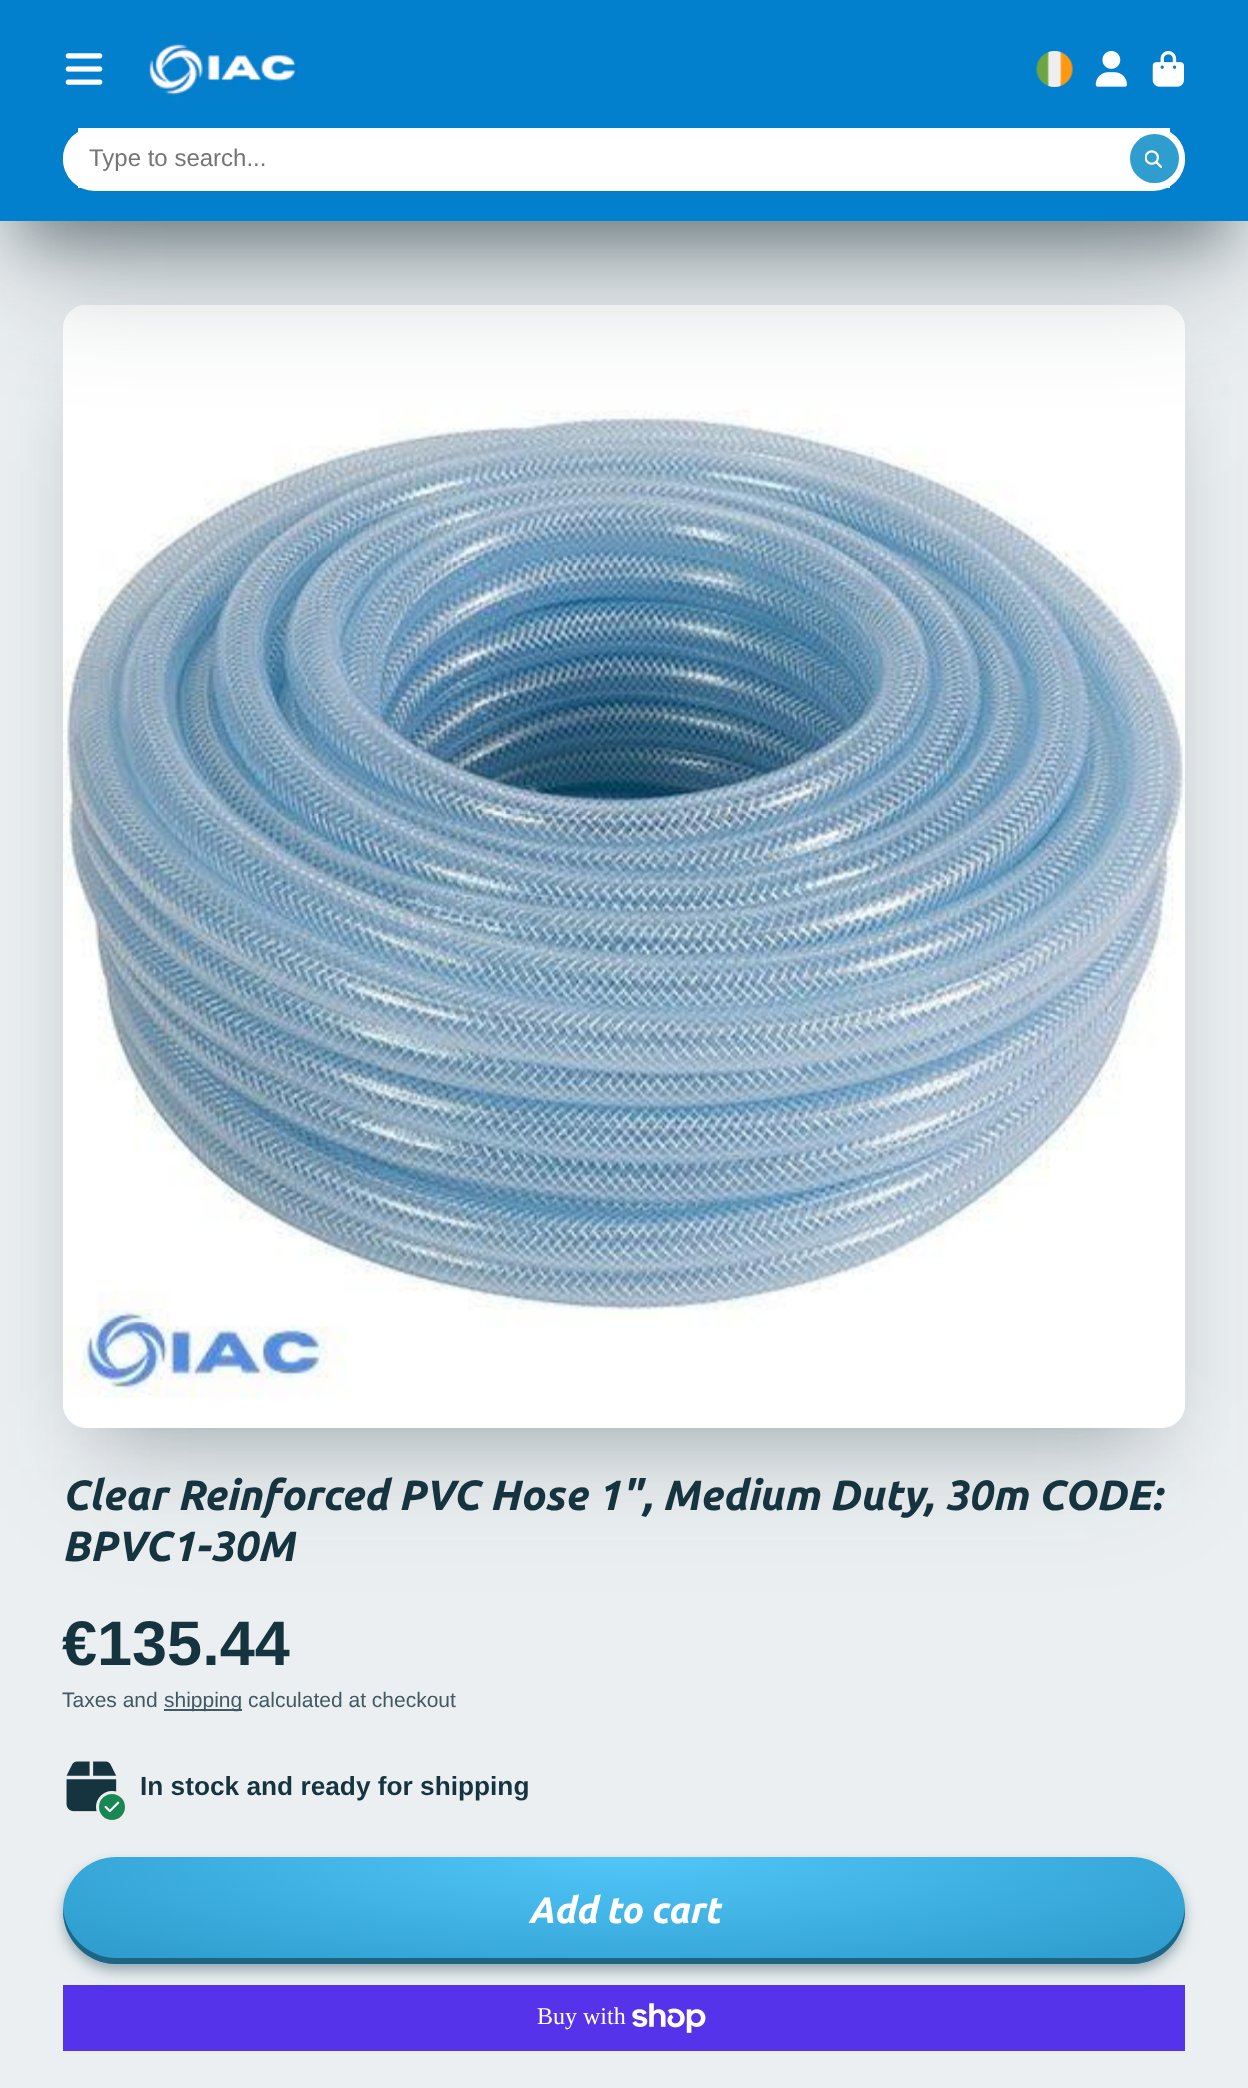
(async () => {
  const canvas = document.querySelector("canvas");
  canvas.width = 1248;
  canvas.height = 2088;
  const ctx = canvas.getContext("2d");
  ctx.miterLimit = 4;
  ctx.fontKerning = "normal";
  async function loadImage(src) {
    const img = new Image();
    img.src = src;
    await img.decode();
    return img;
  }
  let gradient, path;

  ctx.fillStyle = "#ebeff1";
  ctx.fillRect(0, 0, 1248, 2088);
  ctx.fillStyle = "rgba(15, 36, 45, 0.3)";
  ctx.filter = "blur(39.5px)";
  ctx.beginPath();
  ctx.rect(102, 384, 1044, 1044);
  ctx.fill();
  ctx.filter = "none";
  ctx.fillStyle = "rgba(15, 36, 45, 0.1)";
  ctx.filter = "blur(65.5px)";
  ctx.beginPath();
  ctx.rect(90, 396, 1070, 1071);
  ctx.fill();
  ctx.filter = "none";
  ctx.fillStyle = "#ffffff";
  ctx.beginPath();
  ctx.roundRect(63, 305, 1122, 1123, 24);
  ctx.fill();
  ctx.drawImage(await loadImage("img/7.png"), 63, 305, 1122, 1123);
  ctx.fillStyle = "rgba(15, 36, 45, 0.4)";
  ctx.filter = "blur(29px)";
  ctx.beginPath();
  ctx.rect(21, 60, 1206, 179);
  ctx.fill();
  ctx.filter = "none";
  ctx.fillStyle = "rgba(15, 36, 45, 0.3)";
  ctx.filter = "blur(65.5px)";
  ctx.beginPath();
  ctx.rect(21, 87, 1206, 179);
  ctx.fill();
  ctx.filter = "none";
  ctx.fillStyle = "#0280cd";
  ctx.fillRect(0, 0, 1248, 221);
  ctx.drawImage(await loadImage("img/1.png"), 65, 53, 38, 32);
  ctx.drawImage(await loadImage("img/2.png"), 147, 32, 150, 72);
  ctx.drawImage(await loadImage("img/3.png"), 1036, 51, 37, 36);
  ctx.drawImage(await loadImage("img/4.png"), 1095, 51, 32, 36);
  ctx.drawImage(await loadImage("img/5.png"), 1152, 51, 32, 36);
  ctx.fillStyle = "#ffffff";
  ctx.beginPath();
  ctx.roundRect(63, 128, 1122, 60, 30);
  ctx.fill();
  ctx.fillRect(78, 128, 1092, 60);
  ctx.beginPath();
  ctx.roundRect(63, 128, 1122, 63, 31.5);
  ctx.fill();
  ctx.fillStyle = "#2f9ecf";
  ctx.beginPath();
  ctx.arc(1154.5, 158.5, 24.5, 0, Math.PI * 2);
  ctx.fill();
  ctx.drawImage(await loadImage("img/6.png"), 1145, 150, 17, 18);
  ctx.fillStyle = "#415963";
  ctx.fillRect(164, 1709, 78, 2);
  ctx.drawImage(await loadImage("img/8.png"), 66, 1761, 51, 51);
  ctx.fillStyle = "#198754";
  ctx.beginPath();
  ctx.arc(112, 1807, 14.5, 0, Math.PI * 2);
  ctx.fill();
  ctx.strokeStyle = "#ededed";
  ctx.lineWidth = 3;
  ctx.stroke();
  ctx.drawImage(await loadImage("img/9.png"), 104, 1801, 16, 12);
  ctx.fillStyle = "#5433eb";
  ctx.fillRect(63, 1985, 1122, 66);
  ctx.drawImage(await loadImage("img/10.png"), 632, 2003, 74, 30);
  ctx.fillStyle = "rgba(19, 63, 82, 0.15)";
  ctx.filter = "blur(11px)";
  ctx.beginPath();
  ctx.roundRect(69, 1874, 1110, 96, 48);
  ctx.fill();
  ctx.filter = "none";
  ctx.fillStyle = "rgba(19, 63, 82, 0.3)";
  ctx.filter = "blur(5.5px)";
  ctx.beginPath();
  ctx.roundRect(63, 1863, 1122, 107, 53.5);
  ctx.fill();
  ctx.filter = "none";
  ctx.save();
  ctx.beginPath();
  ctx.roundRect(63, 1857, 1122, 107, 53.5);
  ctx.clip();
  ctx.fillStyle = "rgba(19, 63, 82, 0.15)";
  ctx.filter = "blur(11px)";
  ctx.beginPath();
  ctx.roundRect(69, 1874, 1110, 96, 48);
  ctx.fill();
  ctx.filter = "none";
  ctx.fillStyle = "rgba(19, 63, 82, 0.3)";
  ctx.filter = "blur(5.5px)";
  ctx.beginPath();
  ctx.roundRect(63, 1863, 1122, 107, 53.5);
  ctx.fill();
  ctx.filter = "none";
  ctx.restore();
  gradient = ctx.createRadialGradient(624, 9752.32, 0, 624, 9752.32, 793);
  gradient.addColorStop(0, "#52c6f9");
  gradient.addColorStop(0.9, "#2f9ecf");
  ctx.fillStyle = gradient;
  ctx.beginPath();
  ctx.roundRect(63, 1857, 1122, 107, 53.5);
  ctx.save();
  ctx.clip();
  ctx.scale(1, 151 / 793);
  ctx.fillRect(0, 0, 1248, 10966);
  ctx.restore();
  ctx.fillStyle = "#1e6584";
  path = new Path2D("M63 1908C62 1938 86 1964 116 1964H1132C1162 1964 1186 1938 1185 1908C1183 1935 1160 1958 1132 1958H116C88 1958 65 1935 63 1908Z");
  ctx.fill(path);
  ctx.font = "24px Liberation Sans";
  ctx.fillStyle = "#757575";
  ctx.fillText("Type to search...", 89, 166);
  ctx.font = "italic bold 42.25px Ubuntu";
  ctx.fillStyle = "#163340";
  ctx.fillText("Clear Reinforced PVC Hose 1\", Medium Duty, 30m CODE:", 62, 1510);
  ctx.fillText("BPVC1-30M", 62, 1561);
  ctx.font = "bold 63px Liberation Sans";
  ctx.fillText("€135.44", 62, 1665);
  ctx.font = "21px Liberation Sans";
  ctx.fillStyle = "#415963";
  ctx.fillText("Taxes and", 62, 1707);
  ctx.fillText("shipping calculated at checkout", 164, 1707);
  ctx.font = "bold 26.25px Liberation Sans";
  ctx.fillStyle = "#163340";
  ctx.fillText("In stock and ready for shipping", 140, 1795);
  ctx.font = "italic bold 36.75px Ubuntu";
  ctx.fillStyle = "#ffffff";
  ctx.fillText("Add to cart", 528, 1923);
  ctx.font = "24px Liberation Serif";
  ctx.fillText("Buy with", 537, 2024);
})();
